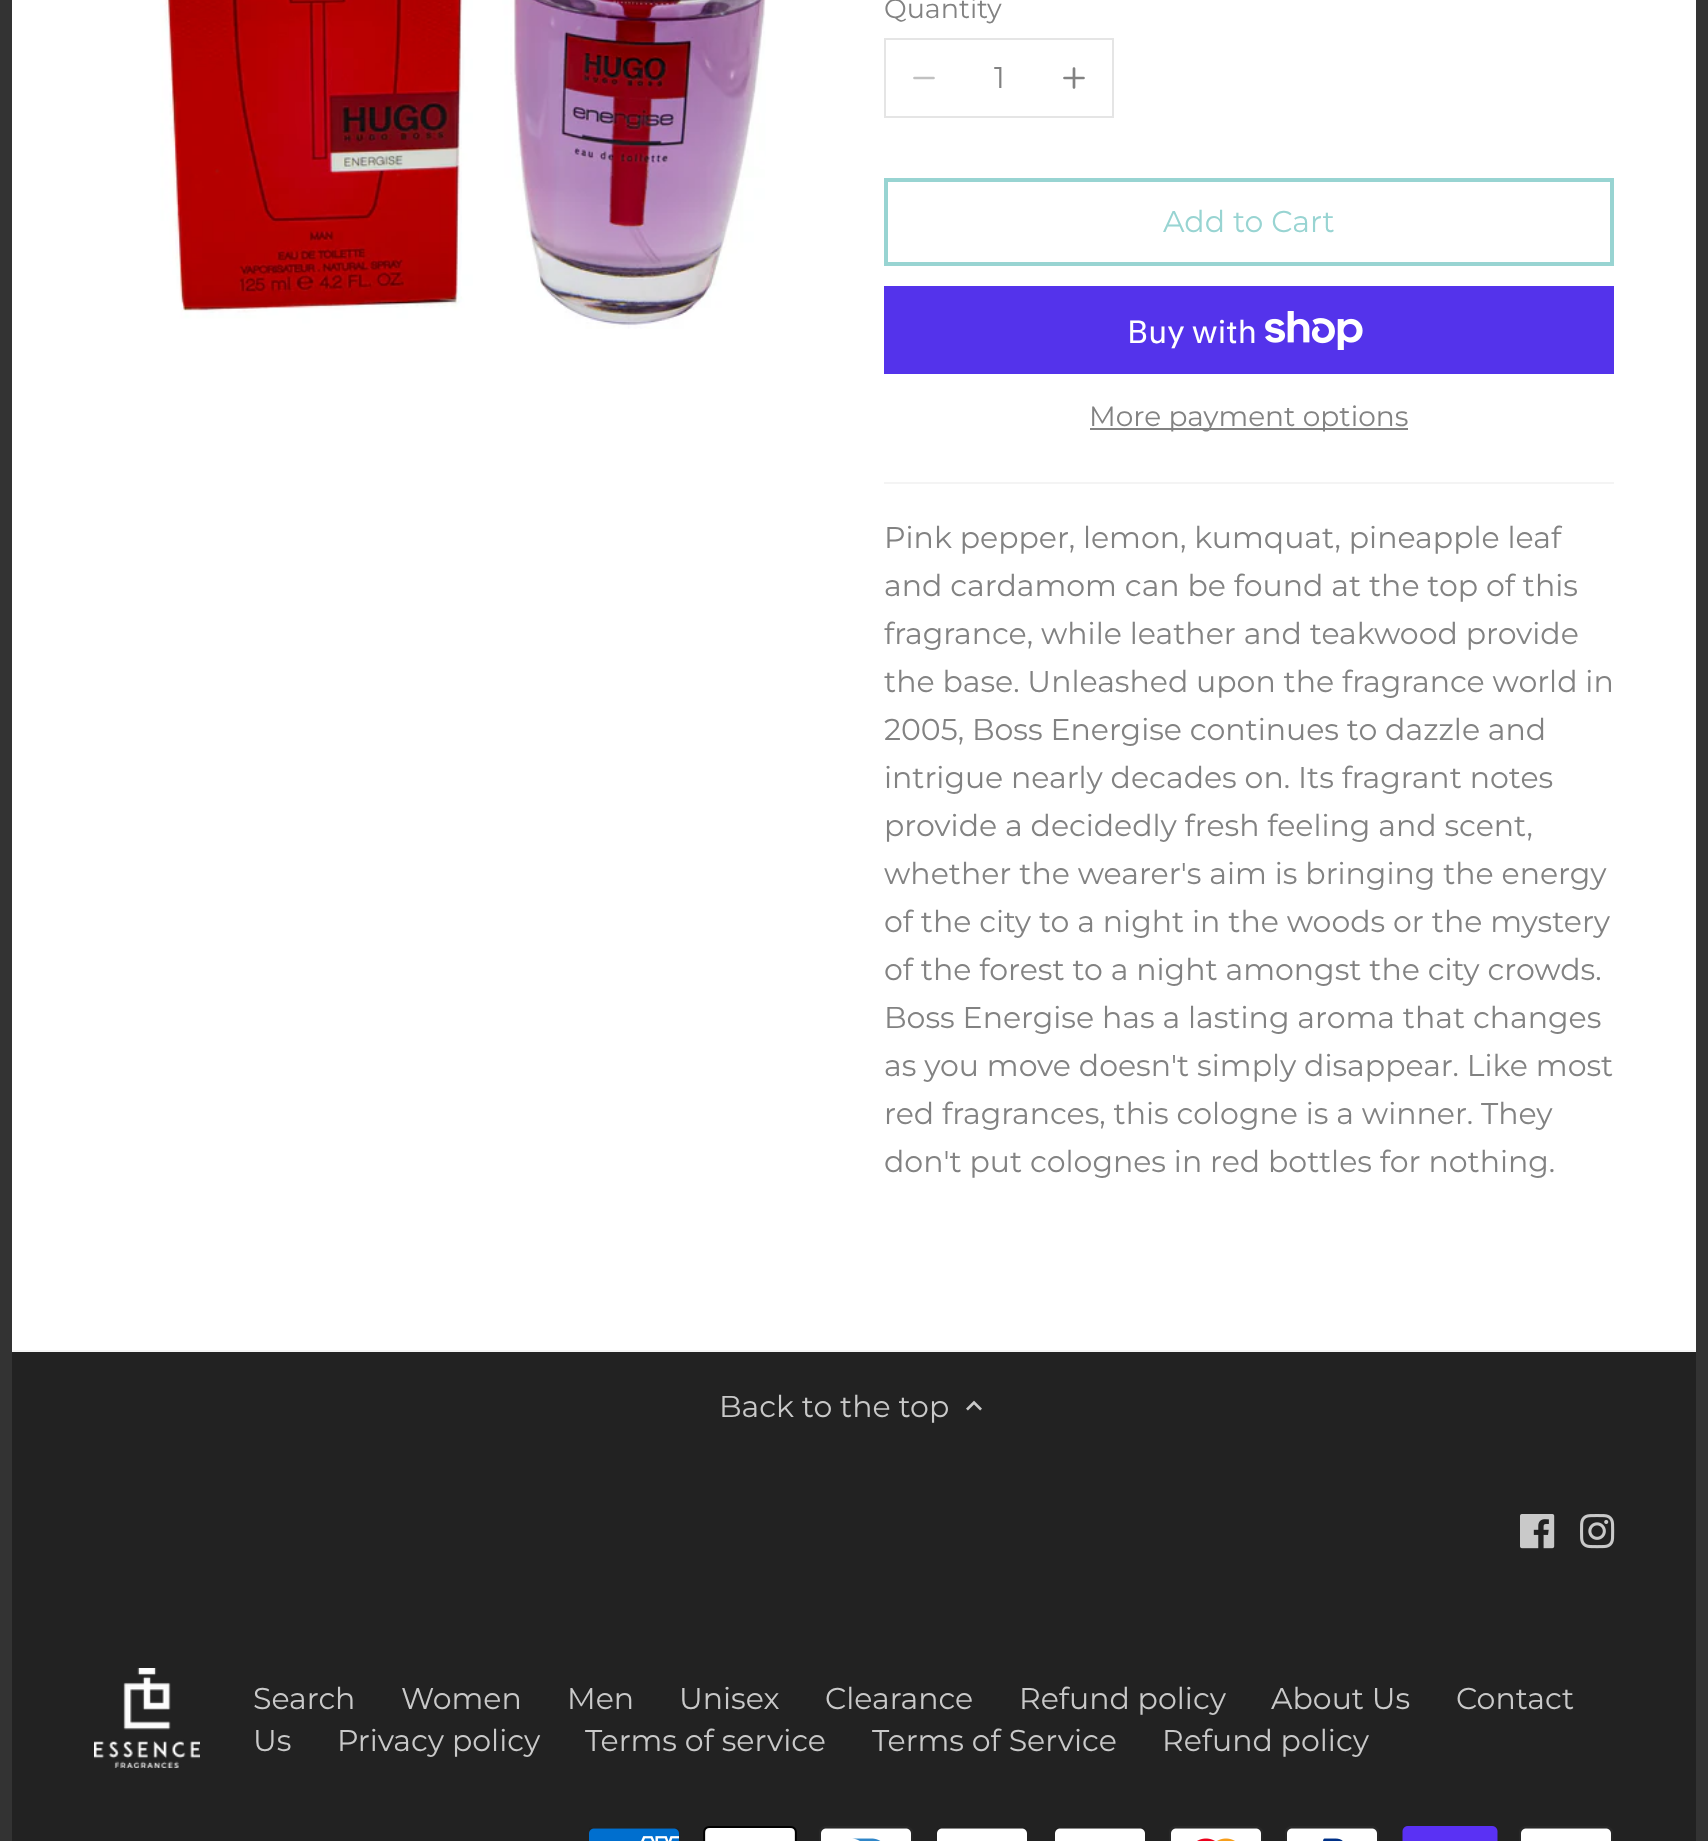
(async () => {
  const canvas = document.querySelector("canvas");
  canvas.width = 1708;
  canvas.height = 1841;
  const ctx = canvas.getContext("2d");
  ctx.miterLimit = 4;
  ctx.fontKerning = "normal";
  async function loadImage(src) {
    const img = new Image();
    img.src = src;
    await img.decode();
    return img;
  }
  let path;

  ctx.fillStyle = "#222222";
  ctx.fillRect(0, 0, 1708, 1841);
  ctx.strokeStyle = "#333333";
  ctx.lineWidth = 12;
  ctx.strokeRect(6, -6, 1696, 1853);
  ctx.fillStyle = "#ffffff";
  ctx.fillRect(12, 0, 1684, 1350);
  ctx.drawImage(await loadImage("img/1.png"), 160, 0, 606, 329);
  ctx.fillStyle = "#f4f4f4";
  ctx.fillRect(884, 482, 730, 2);
  ctx.strokeStyle = "#e5e5e5";
  ctx.lineWidth = 2;
  ctx.strokeRect(885, 39, 228, 78);
  path = new Path2D("M914.5 78H933.5");
  ctx.strokeStyle = "#c1c1c1";
  ctx.lineWidth = 2.7;
  ctx.lineCap = "round";
  ctx.lineJoin = "round";
  ctx.stroke(path);
  path = new Path2D("M1074 68.5V87.5M1064.5 78H1083.5");
  ctx.strokeStyle = "#828282";
  ctx.stroke(path);
  ctx.strokeStyle = "#98d4d2";
  ctx.lineWidth = 4;
  ctx.lineJoin = "miter";
  ctx.strokeRect(886, 180, 726, 84);
  ctx.fillStyle = "#5433eb";
  ctx.fillRect(884, 286, 730, 88);
  ctx.drawImage(await loadImage("img/2.png"), 1265, 311, 98, 39);
  ctx.fillStyle = "#828282";
  ctx.fillRect(1090, 428, 318, 2);
  ctx.fillStyle = "#f4f4f4";
  ctx.fillRect(12, 1350, 1684, 2);
  ctx.drawImage(await loadImage("img/3.png"), 966, 1400, 16, 11);
  ctx.drawImage(await loadImage("img/4.png"), 1520, 1514, 35, 35);
  ctx.drawImage(await loadImage("img/5.png"), 1580, 1514, 35, 35);
  ctx.drawImage(await loadImage("img/6.png"), 94, 1668, 106, 100);
  ctx.drawImage(await loadImage("img/7.png"), 589, 1828, 90, 13);
  ctx.drawImage(await loadImage("img/8.png"), 703, 1826, 94, 15);
  ctx.drawImage(await loadImage("img/9.png"), 819, 1826, 94, 15);
  ctx.drawImage(await loadImage("img/10.png"), 937, 1828, 90, 13);
  ctx.drawImage(await loadImage("img/10.png"), 1055, 1828, 90, 13);
  ctx.drawImage(await loadImage("img/11.png"), 1169, 1826, 94, 15);
  ctx.drawImage(await loadImage("img/12.png"), 1285, 1826, 94, 15);
  ctx.drawImage(await loadImage("img/13.png"), 1402, 1826, 96, 15);
  ctx.drawImage(await loadImage("img/14.png"), 1519, 1826, 94, 15);
  ctx.font = "27px Montserrat";
  ctx.fillStyle = "#828282";
  ctx.fillText("Quantity", 884, 18);
  ctx.font = "30px Montserrat";
  ctx.fillText("1", 994, 88);
  ctx.fillStyle = "#98d4d2";
  ctx.fillText("Add to Cart", 1163, 232);
  ctx.font = "32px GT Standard";
  ctx.fillStyle = "#ffffff";
  ctx.fillText("Buy with", 1127, 343);
  ctx.font = "28px Montserrat";
  ctx.fillStyle = "#828282";
  ctx.fillText("More payment options", 1089, 426);
  ctx.font = "30px Montserrat";
  for (const [text, x, y] of [
    ["Pink pepper, lemon, kumquat, pineapple leaf", 884, 548],
    ["and cardamom can be found at the top of this", 884, 596],
    ["fragrance, while leather and teakwood provide", 884, 644],
    ["the base. Unleashed upon the fragrance world in", 884, 692],
    ["2005, Boss Energise continues to dazzle and", 884, 740],
    ["intrigue nearly decades on. Its fragrant notes", 884, 788],
    ["provide a decidedly fresh feeling and scent,", 884, 836],
    ["whether the wearer's aim is bringing the energy", 884, 884],
    ["of the city to a night in the woods or the mystery", 884, 932],
    ["of the forest to a night amongst the city crowds.", 884, 980],
    ["Boss Energise has a lasting aroma that changes", 884, 1028],
    ["as you move doesn't simply disappear. Like most", 884, 1076],
    ["red fragrances, this cologne is a winner. They", 884, 1124],
    ["don't put colognes in red bottles for nothing.", 884, 1172],
  ]) {
    ctx.fillText(text, x, y);
  }
  ctx.fillStyle = "#c9c9c9";
  for (const [text, x, y] of [
    ["Back to the top", 719, 1417],
    ["Search", 253, 1709],
    ["Women", 401, 1709],
    ["Men", 567, 1709],
    ["Unisex", 679, 1709],
    ["Clearance", 825, 1709],
    ["Refund policy", 1019, 1709],
    ["About Us", 1271, 1709],
    ["Contact", 1456, 1709],
    ["Us", 253, 1751],
    ["Privacy policy", 337, 1751],
    ["Terms of service", 585, 1751],
    ["Terms of Service", 872, 1751],
    ["Refund policy", 1162, 1751],
  ]) {
    ctx.fillText(text, x, y);
  }
})();
